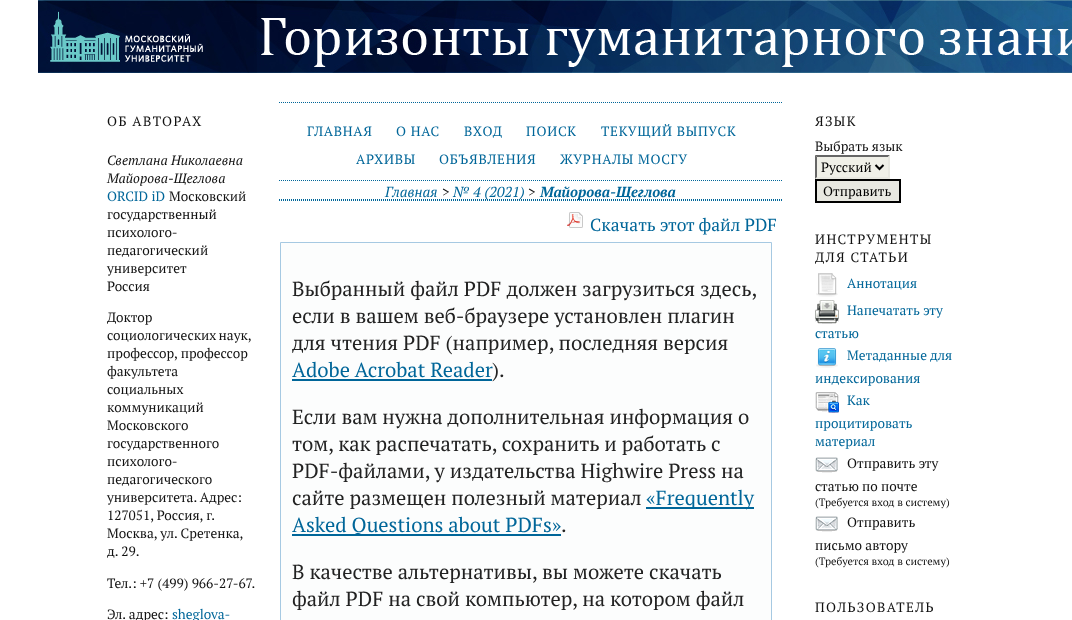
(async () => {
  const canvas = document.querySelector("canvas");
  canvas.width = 1072;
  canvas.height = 620;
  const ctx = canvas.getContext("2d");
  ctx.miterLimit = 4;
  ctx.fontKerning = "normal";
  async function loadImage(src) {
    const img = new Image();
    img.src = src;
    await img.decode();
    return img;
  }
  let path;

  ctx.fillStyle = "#ffffff";
  ctx.fillRect(0, 0, 1072, 620);
  ctx.drawImage(await loadImage("img/1.png"), 38, 0, 1034, 73);
  ctx.fillStyle = "#f0f0e8";
  ctx.fillRect(815, 155, 75, 24);
  ctx.fillStyle = "#666666";
  path = new Path2D("M815 155H890L888 157H817Z");
  ctx.fill(path);
  ctx.fillStyle = "#e8e8e1";
  path = new Path2D("M890 155V179L888 177V157Z");
  ctx.fill(path);
  path = new Path2D("M890 179H815L817 177H888Z");
  ctx.fill(path);
  ctx.fillStyle = "#666666";
  path = new Path2D("M815 179V155L817 157V177Z");
  ctx.fill(path);
  path = new Path2D("M875.5 165L879.5 169L883.5 165");
  ctx.strokeStyle = "#000000";
  ctx.lineWidth = 2;
  ctx.stroke(path);
  ctx.fillStyle = "#e8e8e1";
  ctx.beginPath();
  ctx.rect(816, 180, 84, 22);
  ctx.fill();
  ctx.stroke();
  ctx.drawImage(await loadImage("img/2.png"), 816, 273, 22, 24);
  ctx.drawImage(await loadImage("img/3.png"), 815, 300, 24, 24);
  ctx.drawImage(await loadImage("img/4.png"), 816, 348, 22, 20);
  ctx.drawImage(await loadImage("img/5.png"), 815, 392, 24, 21);
  ctx.drawImage(await loadImage("img/6.png"), 815, 457, 23, 16);
  ctx.drawImage(await loadImage("img/6.png"), 815, 516, 23, 16);
  path = new Path2D("M279 102.5H783");
  ctx.strokeStyle = "#006699";
  ctx.lineWidth = 1;
  ctx.setLineDash([1, 1]);
  ctx.stroke(path);
  path = new Path2D("M279 180.5H783");
  ctx.stroke(path);
  path = new Path2D("M279 199.5H783");
  ctx.stroke(path);
  path = new Path2D("M279 200.5H783");
  ctx.stroke(path);
  ctx.drawImage(await loadImage("img/7.png"), 567, 212, 16, 16);
  ctx.fillStyle = "#fcfdfd";
  ctx.beginPath();
  ctx.rect(280.5, 242.5, 491, 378);
  ctx.fill();
  ctx.strokeStyle = "#a6c9e2";
  ctx.setLineDash([]);
  ctx.stroke();
  for (const [x, y, w, h, color] of [
    [292, 379, 200, 2, "#006699"],
    [646, 507, 108, 2, "#006699"],
    [292, 534, 269, 2, "#006699"],
  ]) {
    ctx.fillStyle = color;
    ctx.fillRect(x, y, w, h);
  }
  ctx.letterSpacing = "1.4px";
  ctx.font = "13.5px PT Serif";
  ctx.fillStyle = "#111111";
  ctx.fillText("ОБ АВТОРАХ", 107, 126);
  ctx.letterSpacing = "0px";
  ctx.font = "italic 13.5px PT Serif";
  ctx.fillText("Светлана Николаевна", 107, 165);
  ctx.fillText("Майорова-Щеглова", 107, 183);
  ctx.font = "13.5px PT Serif";
  ctx.fillStyle = "#006699";
  ctx.fillText("ORCID iD", 107, 201);
  ctx.fillStyle = "#111111";
  for (const [text, x, y] of [
    ["Московский", 169, 201],
    ["государственный", 107, 219],
    ["психолого-", 107, 237],
    ["педагогический", 107, 255],
    ["университет", 107, 273],
    ["Россия", 107, 291],
    ["Доктор", 107, 322],
  ]) {
    ctx.fillText(text, x, y);
  }
  ctx.wordSpacing = "-1px";
  ctx.fillText("социологических наук,", 107, 340);
  ctx.wordSpacing = "0px";
  for (const [text, x, y] of [
    ["профессор, профессор", 107, 358],
    ["факультета", 107, 376],
    ["социальных", 107, 394],
    ["коммуникаций", 107, 412],
    ["Московского", 107, 430],
    ["государственного", 107, 448],
    ["психолого-", 107, 466],
    ["педагогического", 107, 484],
    ["университета. Адрес:", 107, 502],
    ["127051, Россия, г.", 107, 520],
    ["Москва, ул. Сретенка,", 107, 538],
    ["д. 29.", 107, 556],
    ["Тел.: +7 (499) 966-27-67.", 107, 588],
    ["Эл. адрес:", 107, 619],
  ]) {
    ctx.fillText(text, x, y);
  }
  ctx.fillStyle = "#006699";
  ctx.fillText("sheglova-", 172, 619);
  ctx.letterSpacing = "1.4px";
  ctx.fillStyle = "#111111";
  ctx.fillText("ЯЗЫК", 815, 126);
  ctx.letterSpacing = "0px";
  ctx.fillText("Выбрать язык", 815, 151);
  ctx.fillStyle = "#000000";
  ctx.fillText("Русский", 821, 172);
  ctx.fillText("Отправить", 823, 196);
  ctx.letterSpacing = "1.4px";
  ctx.fillStyle = "#111111";
  ctx.fillText("ИНСТРУМЕНТЫ", 815, 244);
  ctx.fillText("ДЛЯ СТАТЬИ", 815, 262);
  ctx.letterSpacing = "0px";
  ctx.fillStyle = "#006699";
  for (const [text, x, y] of [
    ["Аннотация", 847, 288],
    ["Напечатать эту", 847, 315],
    ["статью", 815, 338],
    ["Метаданные для", 847, 360],
    ["индексирования", 815, 383],
    ["Как", 847, 405],
    ["процитировать", 815, 428],
    ["материал", 815, 446],
  ]) {
    ctx.fillText(text, x, y);
  }
  ctx.fillStyle = "#111111";
  ctx.fillText("Отправить эту", 847, 468);
  ctx.fillText("статью по почте", 815, 491);
  ctx.font = "10.75px PT Serif";
  ctx.fillText("(Требуется вход в систему)", 815, 506);
  ctx.font = "13.5px PT Serif";
  ctx.fillText("Отправить", 847, 527);
  ctx.fillText("письмо автору", 815, 550);
  ctx.font = "10.75px PT Serif";
  ctx.fillText("(Требуется вход в систему)", 815, 565);
  ctx.letterSpacing = "1.4px";
  ctx.font = "13.5px PT Serif";
  ctx.fillText("ПОЛЬЗОВАТЕЛЬ", 815, 612);
  ctx.letterSpacing = "0.75px";
  ctx.fillStyle = "#006699";
  for (const [text, x, y] of [
    ["ГЛАВНАЯ", 307, 136],
    ["О НАС", 396, 136],
    ["ВХОД", 464, 136],
    ["ПОИСК", 526, 136],
    ["ТЕКУЩИЙ ВЫПУСК", 601, 136],
    ["АРХИВЫ", 356, 164],
    ["ОБЪЯВЛЕНИЯ", 439, 164],
    ["ЖУРНАЛЫ МОСГУ", 560, 164],
  ]) {
    ctx.fillText(text, x, y);
  }
  ctx.letterSpacing = "0px";
  ctx.font = "italic 14.5px PT Serif";
  ctx.fillText("Главная", 385, 197);
  ctx.fillStyle = "#111111";
  ctx.fillText(">", 442, 197);
  ctx.fillStyle = "#006699";
  ctx.fillText("№ 4 (2021)", 453, 197);
  ctx.fillStyle = "#111111";
  ctx.fillText(">", 528, 197);
  ctx.font = "italic bold 14.5px PT Serif";
  ctx.fillStyle = "#006699";
  ctx.fillText("Майорова-Щеглова", 540, 197);
  ctx.font = "17.5px PT Serif";
  ctx.fillText("Скачать этот файл PDF", 590, 231);
  ctx.font = "20.4px PT Serif";
  ctx.fillStyle = "#222222";
  for (const [text, x, y] of [
    ["Выбранный файл PDF должен загрузиться здесь,", 292, 296],
    ["если в вашем веб-браузере установлен плагин", 292, 323],
    ["для чтения PDF (например, последняя версия", 292, 350],
  ]) {
    ctx.fillText(text, x, y);
  }
  ctx.fillStyle = "#006699";
  ctx.fillText("Adobe Acrobat Reader", 292, 377);
  ctx.fillStyle = "#222222";
  for (const [text, x, y] of [
    [").", 492, 377],
    ["Если вам нужна дополнительная информация о", 292, 424],
    ["том, как распечатать, сохранить и работать с", 292, 451],
    ["PDF-файлами, у издательства Highwire Press на", 292, 478],
    ["сайте размещен полезный материал", 292, 505],
  ]) {
    ctx.fillText(text, x, y);
  }
  ctx.fillStyle = "#006699";
  ctx.fillText("«Frequently", 646, 505);
  ctx.fillText("Asked Questions about PDFs»", 292, 532);
  ctx.fillStyle = "#222222";
  for (const [text, x, y] of [
    [".", 561, 532],
    ["В качестве альтернативы, вы можете скачать", 292, 579],
    ["файл PDF на свой компьютер, на котором файл", 292, 606],
  ]) {
    ctx.fillText(text, x, y);
  }
})();
